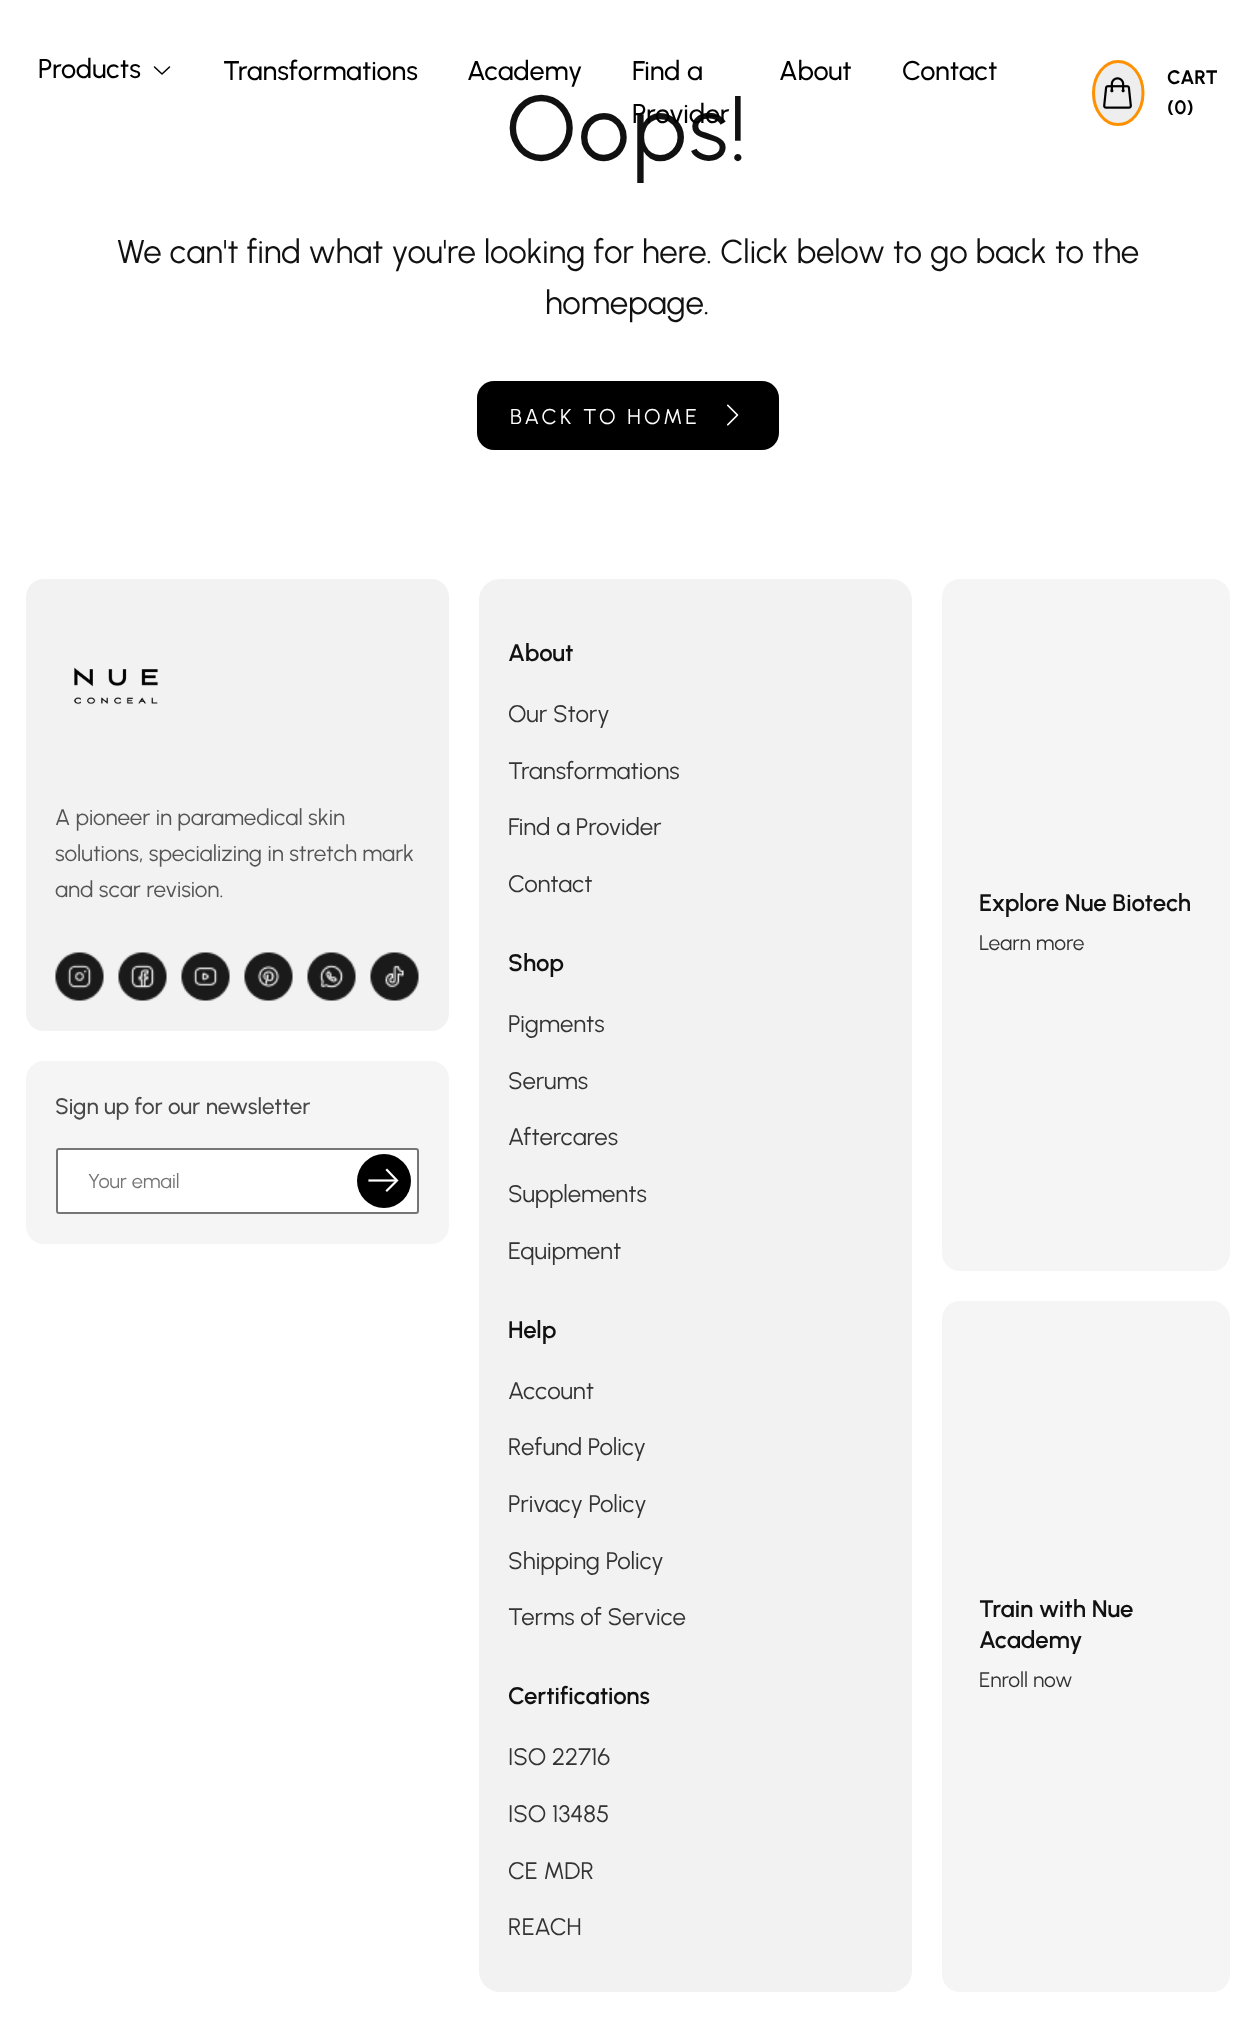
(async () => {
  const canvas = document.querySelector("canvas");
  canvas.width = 1255;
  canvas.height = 2028;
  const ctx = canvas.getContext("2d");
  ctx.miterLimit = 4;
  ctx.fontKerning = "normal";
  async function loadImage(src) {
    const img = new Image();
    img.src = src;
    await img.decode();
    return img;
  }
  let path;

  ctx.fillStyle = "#ffffff";
  ctx.fillRect(0, 0, 1255, 2028);
  path = new Path2D("M169.5 67L162 74L154.5 67");
  ctx.strokeStyle = "#000000";
  ctx.lineWidth = 1.5;
  ctx.lineCap = "round";
  ctx.lineJoin = "round";
  ctx.stroke(path);
  ctx.fillStyle = "#eeeeee";
  ctx.beginPath();
  ctx.ellipse(1118, 93, 26, 33, 0, 0, Math.PI * 2);
  ctx.fill();
  path = new Path2D("M1118 61.5C1132 61.5 1143 75.5 1143 93C1143 110.5 1132 124.5 1118 124.5C1104.5 124.5 1093.5 110.5 1093.5 93C1093.5 75.5 1104.5 61.5 1118 61.5Z");
  ctx.strokeStyle = "#ff9100";
  ctx.lineWidth = 3;
  ctx.lineCap = "butt";
  ctx.lineJoin = "miter";
  ctx.stroke(path);
  ctx.drawImage(await loadImage("img/1.png"), 1103, 77, 29, 32);
  ctx.fillStyle = "#000000";
  ctx.beginPath();
  ctx.roundRect(477, 381, 302, 69, 17);
  ctx.fill();
  ctx.drawImage(await loadImage("img/2.png"), 727, 404, 12, 22);
  ctx.fillStyle = "#f2f2f2";
  ctx.beginPath();
  ctx.roundRect(26, 579, 423, 452, 18);
  ctx.fill();
  ctx.drawImage(await loadImage("img/3.png"), 74, 667, 85, 38);
  ctx.drawImage(await loadImage("img/4.png"), 55, 952, 49, 49);
  ctx.drawImage(await loadImage("img/5.png"), 118, 952, 49, 49);
  ctx.drawImage(await loadImage("img/6.png"), 181, 952, 49, 49);
  ctx.drawImage(await loadImage("img/7.png"), 244, 952, 49, 49);
  ctx.drawImage(await loadImage("img/8.png"), 307, 952, 49, 49);
  ctx.drawImage(await loadImage("img/9.png"), 370, 952, 49, 49);
  ctx.fillStyle = "#f5f5f5";
  ctx.beginPath();
  ctx.roundRect(26, 1061, 423, 183, 18);
  ctx.fill();
  ctx.fillStyle = "#ffffff";
  ctx.beginPath();
  ctx.roundRect(57, 1149, 361, 64, 2);
  ctx.fill();
  ctx.strokeStyle = "#767676";
  ctx.lineWidth = 2;
  ctx.stroke();
  ctx.fillStyle = "#000000";
  ctx.beginPath();
  ctx.arc(384, 1181, 27, 0, Math.PI * 2);
  ctx.fill();
  path = new Path2D("M369.5 1180.5H395.5");
  ctx.strokeStyle = "#ffffff";
  ctx.lineWidth = 2.2;
  ctx.lineCap = "square";
  ctx.lineJoin = "round";
  ctx.stroke(path);
  path = new Path2D("M387 1170L397 1180.5L387 1190.5");
  ctx.lineJoin = "miter";
  ctx.stroke(path);
  ctx.fillStyle = "#f2f2f2";
  ctx.beginPath();
  ctx.roundRect(479, 579, 433, 1413, 21);
  ctx.fill();
  ctx.fillStyle = "#f5f5f5";
  ctx.beginPath();
  ctx.roundRect(942, 579, 288, 692, 18);
  ctx.fill();
  ctx.beginPath();
  ctx.roundRect(942, 1301, 288, 691, 18);
  ctx.fill();
  ctx.font = "500 27px Urbanist";
  ctx.fillStyle = "#000000";
  for (const [text, x, y] of [
    ["Products", 38, 78],
    ["Transformations", 223, 80],
    ["Academy", 467, 80],
    ["Find a", 632, 80],
    ["About", 779, 80],
    ["Contact", 902, 80],
  ]) {
    ctx.fillText(text, x, y);
  }
  ctx.font = "bold 19.5px Urbanist";
  ctx.fillText("CART", 1167, 84);
  ctx.fillText("(0)", 1167, 114);
  ctx.letterSpacing = "2.5px";
  ctx.font = "91.5px Urbanist";
  ctx.fillStyle = "#111111";
  ctx.fillText("Oops!", 506, 160);
  ctx.letterSpacing = "0px";
  ctx.font = "500 27px Urbanist";
  ctx.fillStyle = "#000000";
  ctx.fillText("Provider", 632, 123);
  ctx.font = "33px Urbanist";
  ctx.fillStyle = "#111111";
  ctx.fillText("We can't find what you're looking for here. Click below to go back to the", 117, 263);
  ctx.fillText("homepage.", 545, 314);
  ctx.letterSpacing = "3.25px";
  ctx.font = "21.5px Urbanist";
  ctx.fillStyle = "#ffffff";
  ctx.fillText("BACK TO HOME", 510, 424);
  ctx.letterSpacing = "0px";
  ctx.font = "22.5px Urbanist";
  ctx.fillStyle = "#555555";
  for (const [text, x, y] of [
    ["A pioneer in paramedical skin", 55, 825],
    ["solutions, specializing in stretch mark", 55, 861],
    ["and scar revision.", 55, 897],
  ]) {
    ctx.fillText(text, x, y);
  }
  ctx.font = "500 22.5px Urbanist";
  ctx.fillStyle = "#484848";
  ctx.fillText("Sign up for our newsletter", 55, 1114);
  ctx.font = "20px Urbanist";
  ctx.fillStyle = "#757575";
  ctx.fillText("Your email", 88, 1188);
  ctx.font = "600 24px Urbanist";
  ctx.fillStyle = "#111111";
  ctx.fillText("About", 508, 661);
  ctx.font = "24px Urbanist";
  ctx.fillStyle = "#333333";
  for (const [text, x, y] of [
    ["Our Story", 508, 722],
    ["Transformations", 508, 779],
    ["Find a Provider", 508, 835],
    ["Contact", 508, 892],
  ]) {
    ctx.fillText(text, x, y);
  }
  ctx.font = "600 24px Urbanist";
  ctx.fillStyle = "#111111";
  ctx.fillText("Shop", 508, 971);
  ctx.font = "24px Urbanist";
  ctx.fillStyle = "#333333";
  for (const [text, x, y] of [
    ["Pigments", 508, 1032],
    ["Serums", 508, 1089],
    ["Aftercares", 508, 1145],
    ["Supplements", 508, 1202],
    ["Equipment", 508, 1259],
  ]) {
    ctx.fillText(text, x, y);
  }
  ctx.font = "600 24px Urbanist";
  ctx.fillStyle = "#111111";
  ctx.fillText("Help", 508, 1338);
  ctx.font = "24px Urbanist";
  ctx.fillStyle = "#333333";
  for (const [text, x, y] of [
    ["Account", 508, 1399],
    ["Refund Policy", 508, 1455],
    ["Privacy Policy", 508, 1512],
    ["Shipping Policy", 508, 1569],
    ["Terms of Service", 508, 1625],
  ]) {
    ctx.fillText(text, x, y);
  }
  ctx.font = "600 24px Urbanist";
  ctx.fillStyle = "#111111";
  ctx.fillText("Certifications", 508, 1704);
  ctx.font = "24px Urbanist";
  ctx.fillStyle = "#333333";
  for (const [text, x, y] of [
    ["ISO 22716", 508, 1765],
    ["ISO 13485", 508, 1822],
    ["CE MDR", 508, 1879],
    ["REACH", 508, 1935],
  ]) {
    ctx.fillText(text, x, y);
  }
  ctx.font = "600 24px Urbanist";
  ctx.fillStyle = "#111111";
  ctx.fillText("Explore Nue Biotech", 979, 911);
  ctx.font = "21px Urbanist";
  ctx.fillStyle = "#333333";
  ctx.fillText("Learn more", 979, 950);
  ctx.font = "600 24px Urbanist";
  ctx.fillStyle = "#111111";
  ctx.fillText("Train with Nue", 979, 1617);
  ctx.fillText("Academy", 979, 1648);
  ctx.font = "21px Urbanist";
  ctx.fillStyle = "#333333";
  ctx.fillText("Enroll now", 979, 1687);
})();
